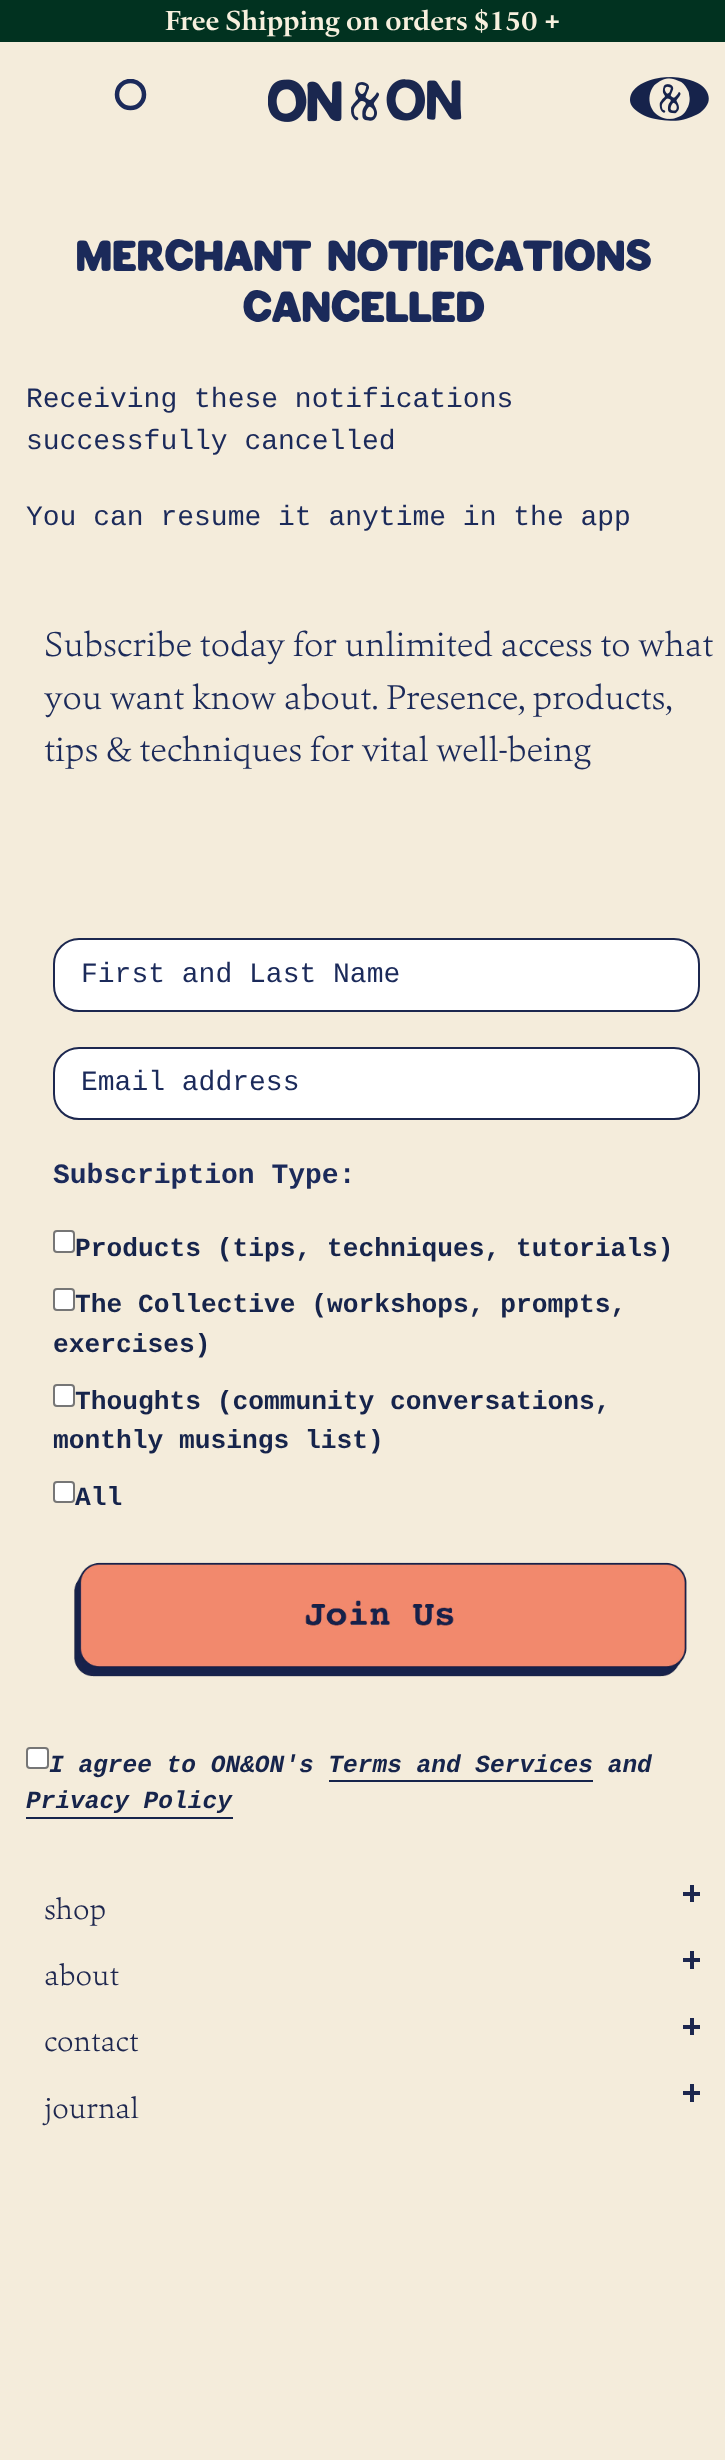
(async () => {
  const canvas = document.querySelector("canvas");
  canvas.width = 725;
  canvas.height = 2460;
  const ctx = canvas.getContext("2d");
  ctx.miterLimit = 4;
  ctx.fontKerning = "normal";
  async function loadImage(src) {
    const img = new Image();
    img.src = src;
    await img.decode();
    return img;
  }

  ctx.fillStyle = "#f4ecdb";
  ctx.fillRect(0, 0, 725, 2460);
  ctx.fillStyle = "#013220";
  ctx.fillRect(0, 0, 725, 42);
  ctx.save();
  ctx.beginPath();
  ctx.rect(107, 79, 61, 44);
  ctx.clip();
  ctx.beginPath();
  ctx.arc(130.5, 94.5, 13.5, 0, Math.PI * 2);
  ctx.strokeStyle = "#1b2a5a";
  ctx.lineWidth = 4.5;
  ctx.stroke();
  ctx.restore();
  ctx.drawImage(await loadImage("img/1.png"), 268, 79, 194, 43);
  ctx.drawImage(await loadImage("img/2.png"), 630, 77, 79, 44);
  ctx.fillStyle = "#ffffff";
  ctx.beginPath();
  ctx.roundRect(54, 939, 645, 72, 25);
  ctx.fill();
  ctx.strokeStyle = "#1c274f";
  ctx.lineWidth = 2;
  ctx.stroke();
  ctx.beginPath();
  ctx.roundRect(54, 1048, 645, 71, 25);
  ctx.fill();
  ctx.stroke();
  ctx.beginPath();
  ctx.roundRect(54, 1231, 20, 21, 3);
  ctx.fill();
  ctx.strokeStyle = "#767676";
  ctx.stroke();
  ctx.beginPath();
  ctx.roundRect(54, 1289, 20, 21, 3);
  ctx.fill();
  ctx.stroke();
  ctx.beginPath();
  ctx.roundRect(54, 1385, 20, 21, 3);
  ctx.fill();
  ctx.stroke();
  ctx.beginPath();
  ctx.roundRect(54, 1482, 20, 20, 3);
  ctx.fill();
  ctx.stroke();
  ctx.drawImage(await loadImage("img/3.png"), 74, 1562, 613, 115);
  ctx.beginPath();
  ctx.roundRect(27, 1748, 21, 20, 3);
  ctx.fill();
  ctx.stroke();
  for (const [x, y, w, h, color] of [
    [329, 1780, 264, 2, "#16244b"],
    [26, 1817, 207, 2, "#16244b"],
    [683, 1892, 17, 4, "#1c274f"],
    [690, 1885, 4, 17, "#1c274f"],
    [683, 1958, 17, 4, "#1c274f"],
    [690, 1951, 4, 18, "#1c274f"],
    [683, 2025, 17, 4, "#1c274f"],
    [690, 2018, 4, 17, "#1c274f"],
    [683, 2091, 17, 4, "#1c274f"],
    [690, 2084, 4, 18, "#1c274f"],
  ]) {
    ctx.fillStyle = color;
    ctx.fillRect(x, y, w, h);
  }
  ctx.font = "bold 28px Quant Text";
  ctx.fillStyle = "#f7f0de";
  ctx.fillText("Free Shipping on orders $150 +", 165, 30);
  ctx.font = "bold 42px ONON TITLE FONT";
  ctx.fillStyle = "#1b2a5a";
  ctx.fillText("MERCHANT NOTIFICATIONS", 75, 271);
  ctx.fillText("CANCELLED", 242, 322);
  ctx.font = "28px Liberation Mono";
  for (const [text, x, y] of [
    ["Receiving these notifications", 26, 407],
    ["successfully cancelled", 26, 449],
    ["You can resume it anytime in the app", 26, 525],
  ]) {
    ctx.fillText(text, x, y);
  }
  ctx.font = "300 35px Quant Text";
  for (const [text, x, y] of [
    ["Subscribe today for unlimited access to what", 44, 656],
    ["you want know about. Presence, products,", 44, 709],
    ["tips & techniques for vital well-being", 44, 761],
  ]) {
    ctx.fillText(text, x, y);
  }
  ctx.font = "28px Liberation Mono";
  ctx.fillText("First and Last Name", 81, 982);
  ctx.fillText("Email address", 81, 1090);
  ctx.font = "bold 28px Liberation Mono";
  ctx.fillText("Subscription Type:", 53, 1183);
  ctx.font = "bold 26.25px Liberation Mono";
  ctx.fillStyle = "#16244b";
  for (const [text, x, y] of [
    ["Products (tips, techniques, tutorials)", 75, 1256],
    ["The Collective (workshops, prompts,", 75, 1312],
    ["exercises)", 53, 1352],
    ["Thoughts (community conversations,", 75, 1409],
    ["monthly musings list)", 53, 1448],
    ["All", 75, 1505],
  ]) {
    ctx.fillText(text, x, y);
  }
  ctx.font = "italic bold 24.5px Liberation Mono";
  ctx.fillText("I agree to ON&ON's Terms and Services and", 49, 1772);
  ctx.fillText("Privacy Policy", 26, 1808);
  ctx.font = "300 30px Quant Text";
  ctx.fillStyle = "#1e274f";
  for (const [text, x, y] of [
    ["shop", 44, 1919],
    ["about", 44, 1985],
    ["contact", 44, 2051],
    ["journal", 44, 2118],
  ]) {
    ctx.fillText(text, x, y);
  }
})();
